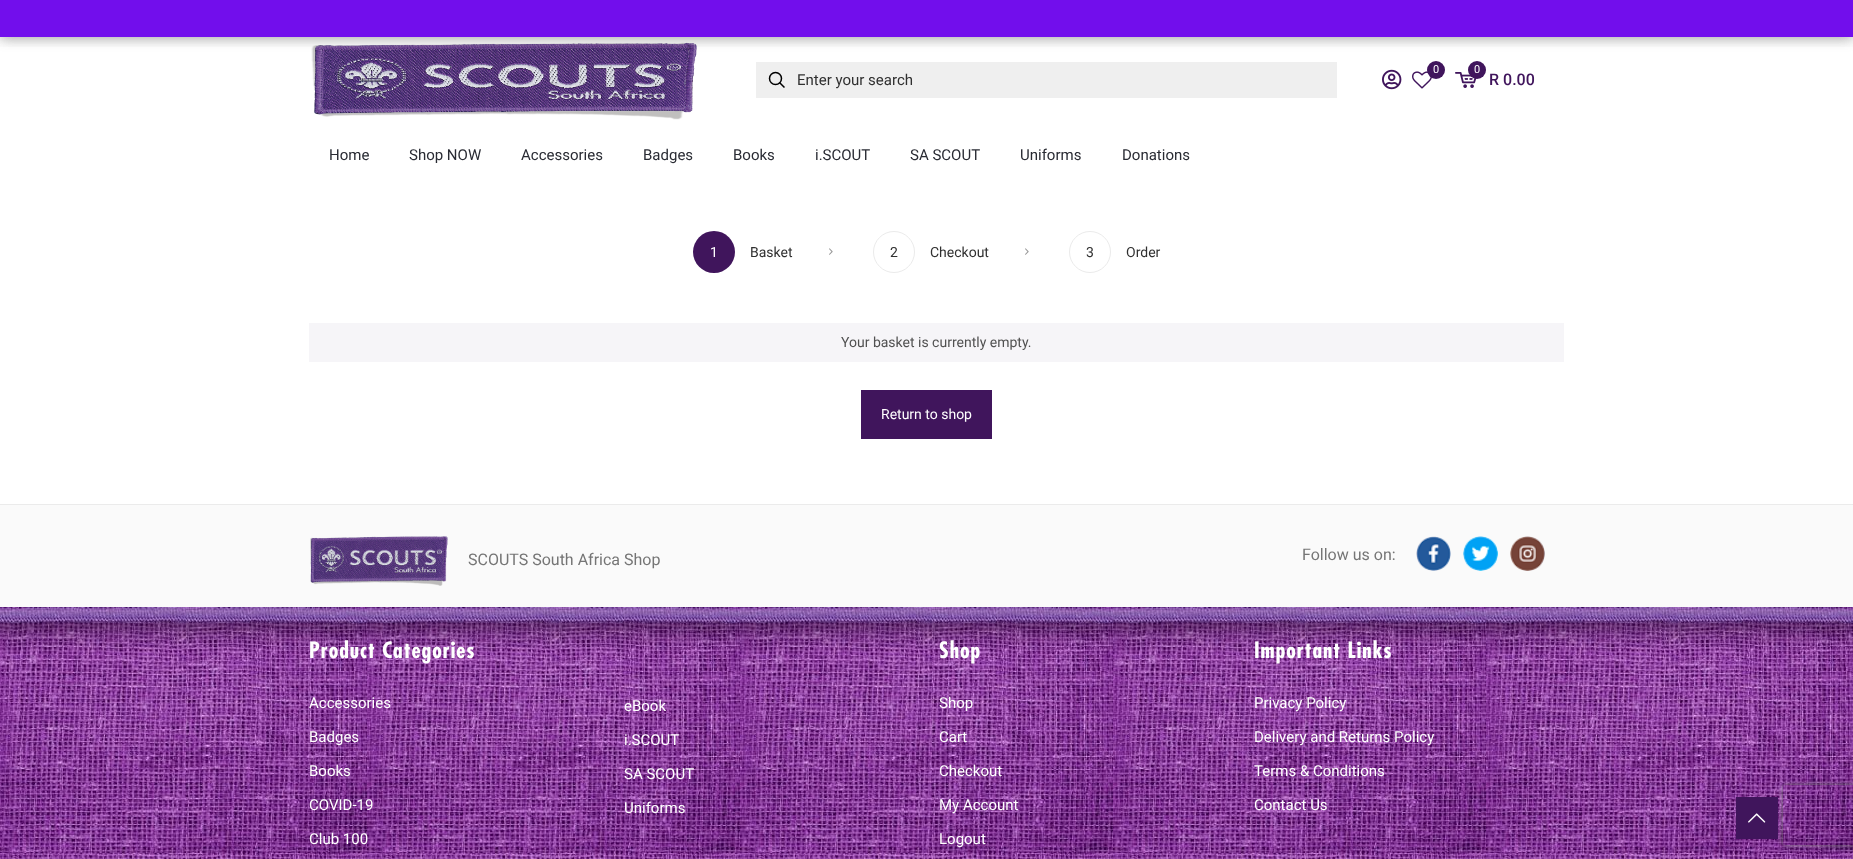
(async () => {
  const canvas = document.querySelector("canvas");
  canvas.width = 1853;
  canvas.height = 859;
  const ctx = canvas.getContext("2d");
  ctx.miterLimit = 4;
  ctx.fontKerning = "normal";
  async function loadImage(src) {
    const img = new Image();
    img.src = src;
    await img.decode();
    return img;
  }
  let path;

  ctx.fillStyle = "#ffffff";
  ctx.fillRect(0, 0, 1853, 859);
  ctx.drawImage(await loadImage("img/1.png"), 311, 42, 386, 78);
  ctx.fillStyle = "rgba(0, 0, 0, 0.2)";
  ctx.filter = "blur(7px)";
  ctx.beginPath();
  ctx.rect(0, -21, 1853, 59);
  ctx.fill();
  ctx.filter = "none";
  ctx.fillStyle = "#720eec";
  ctx.fillRect(0, 0, 1853, 37);
  ctx.save();
  ctx.beginPath();
  ctx.rect(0, 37, 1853, 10);
  ctx.clip();
  ctx.fillStyle = "rgba(0, 0, 0, 0.2)";
  ctx.filter = "blur(7px)";
  ctx.beginPath();
  ctx.rect(0, -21, 1853, 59);
  ctx.fill();
  ctx.filter = "none";
  ctx.restore();
  ctx.fillStyle = "#efefef";
  ctx.fillRect(756, 62, 581, 36);
  ctx.beginPath();
  ctx.arc(775.5, 78.5, 6, 0, Math.PI * 2);
  ctx.strokeStyle = "#000000";
  ctx.lineWidth = 1.5;
  ctx.stroke();
  path = new Path2D("M779.5 82.5L784.5 87.5");
  ctx.stroke(path);
  ctx.drawImage(await loadImage("img/2.png"), 1382, 69, 20, 21);
  ctx.drawImage(await loadImage("img/3.png"), 1412, 71, 20, 18);
  ctx.fillStyle = "#40155c";
  ctx.beginPath();
  ctx.arc(1436, 70, 9, 0, Math.PI * 2);
  ctx.fill();
  ctx.drawImage(await loadImage("img/4.png"), 1455, 72, 22, 16);
  ctx.beginPath();
  ctx.arc(1477, 70, 9, 0, Math.PI * 2);
  ctx.fill();
  ctx.beginPath();
  ctx.arc(714, 252, 21, 0, Math.PI * 2);
  ctx.fill();
  ctx.drawImage(await loadImage("img/5.png"), 829, 248, 4, 7);
  ctx.beginPath();
  ctx.arc(894, 252, 20.5, 0, Math.PI * 2);
  ctx.strokeStyle = "#ebebeb";
  ctx.lineWidth = 1;
  ctx.stroke();
  ctx.drawImage(await loadImage("img/5.png"), 1025, 248, 4, 7);
  ctx.beginPath();
  ctx.arc(1090, 252, 20.5, 0, Math.PI * 2);
  ctx.stroke();
  for (const [x, y, w, h, color] of [
    [309, 323, 1255, 39, "#f6f5f8"],
    [861, 390, 131, 49, "#40155c"],
    [0, 505, 1853, 102, "#fafafa"],
    [0, 504, 1853, 1, "#ebebeb"],
  ]) {
    ctx.fillStyle = color;
    ctx.fillRect(x, y, w, h);
  }
  ctx.drawImage(await loadImage("img/6.png"), 310, 536, 138, 50);
  ctx.drawImage(await loadImage("img/7.png"), 1416, 536, 35, 35);
  ctx.drawImage(await loadImage("img/8.png"), 1463, 536, 35, 35);
  ctx.drawImage(await loadImage("img/9.png"), 1510, 536, 35, 35);
  ctx.drawImage(await loadImage("img/10.png"), 0, 607, 1853, 252);
  ctx.save();
  path = new Path2D("M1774 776H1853V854H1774ZM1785 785H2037C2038 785 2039 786 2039 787V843C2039 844 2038 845 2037 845H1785C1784 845 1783 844 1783 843V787C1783 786 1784 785 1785 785Z");
  ctx.clip(path, "evenodd");
  ctx.fillStyle = "#808080";
  ctx.filter = "blur(2.5px)";
  ctx.beginPath();
  ctx.roundRect(1783, 785, 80, 60, 2);
  ctx.fill();
  ctx.filter = "none";
  ctx.restore();
  ctx.fillStyle = "#40155c";
  ctx.fillRect(1736, 797, 42, 42);
  ctx.drawImage(await loadImage("img/11.png"), 1748, 813, 18, 10);
  ctx.font = "15px Roboto";
  ctx.fillStyle = "#303030";
  ctx.fillText("Enter your search", 797, 85);
  ctx.font = "11px Roboto";
  ctx.fillStyle = "#ffffff";
  ctx.fillText("0", 1433, 73);
  ctx.fillText("0", 1474, 73);
  ctx.font = "500 16px Roboto";
  ctx.fillStyle = "#40155c";
  ctx.fillText("R 0.00", 1489, 85);
  ctx.font = "15px Roboto";
  ctx.fillStyle = "#292b33";
  for (const [text, x, y] of [
    ["Home", 329, 160],
    ["Shop NOW", 409, 160],
    ["Accessories", 521, 160],
    ["Badges", 643, 160],
    ["Books", 733, 160],
    ["i.SCOUT", 815, 160],
    ["SA SCOUT", 910, 160],
    ["Uniforms", 1020, 160],
    ["Donations", 1122, 160],
  ]) {
    ctx.fillText(text, x, y);
  }
  ctx.font = "14px Roboto";
  ctx.fillStyle = "#ffffff";
  ctx.fillText("1", 710, 257);
  ctx.fillStyle = "#303030";
  for (const [text, x, y] of [
    ["Basket", 750, 257],
    ["2", 890, 257],
    ["Checkout", 930, 257],
    ["3", 1086, 257],
    ["Order", 1126, 257],
  ]) {
    ctx.fillText(text, x, y);
  }
  ctx.fillStyle = "#515151";
  ctx.fillText("Your basket is currently empty.", 841, 347);
  ctx.fillStyle = "#ffffff";
  ctx.fillText("Return to shop", 881, 419);
  ctx.font = "16px Roboto";
  ctx.fillStyle = "#757575";
  ctx.fillText("SCOUTS South Africa Shop", 468, 565);
  ctx.fillText("Follow us on:", 1302, 560);
  ctx.letterSpacing = "1px";
  ctx.font = "bold 22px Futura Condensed";
  ctx.fillStyle = "#ffffff";
  ctx.fillText("Product Categories", 309, 658);
  ctx.letterSpacing = "0px";
  ctx.font = "15px Roboto";
  for (const [text, x, y] of [
    ["Accessories", 309, 708],
    ["Badges", 309, 742],
    ["Books", 309, 776],
    ["COVID-19", 309, 810],
    ["Club 100", 309, 844],
    ["eBook", 624, 711],
    ["i.SCOUT", 624, 745],
    ["SA SCOUT", 624, 779],
    ["Uniforms", 624, 813],
  ]) {
    ctx.fillText(text, x, y);
  }
  ctx.letterSpacing = "1px";
  ctx.font = "bold 22px Futura Condensed";
  ctx.fillText("Shop", 939, 658);
  ctx.letterSpacing = "0px";
  ctx.font = "15px Roboto";
  for (const [text, x, y] of [
    ["Shop", 939, 708],
    ["Cart", 939, 742],
    ["Checkout", 939, 776],
    ["My Account", 939, 810],
    ["Logout", 939, 844],
  ]) {
    ctx.fillText(text, x, y);
  }
  ctx.letterSpacing = "1px";
  ctx.font = "bold 22px Futura Condensed";
  ctx.fillText("Important Links", 1254, 658);
  ctx.letterSpacing = "0px";
  ctx.font = "15px Roboto";
  for (const [text, x, y] of [
    ["Privacy Policy", 1254, 708],
    ["Delivery and Returns Policy", 1254, 742],
    ["Terms & Conditions", 1254, 776],
    ["Contact Us", 1254, 810],
  ]) {
    ctx.fillText(text, x, y);
  }
})();
